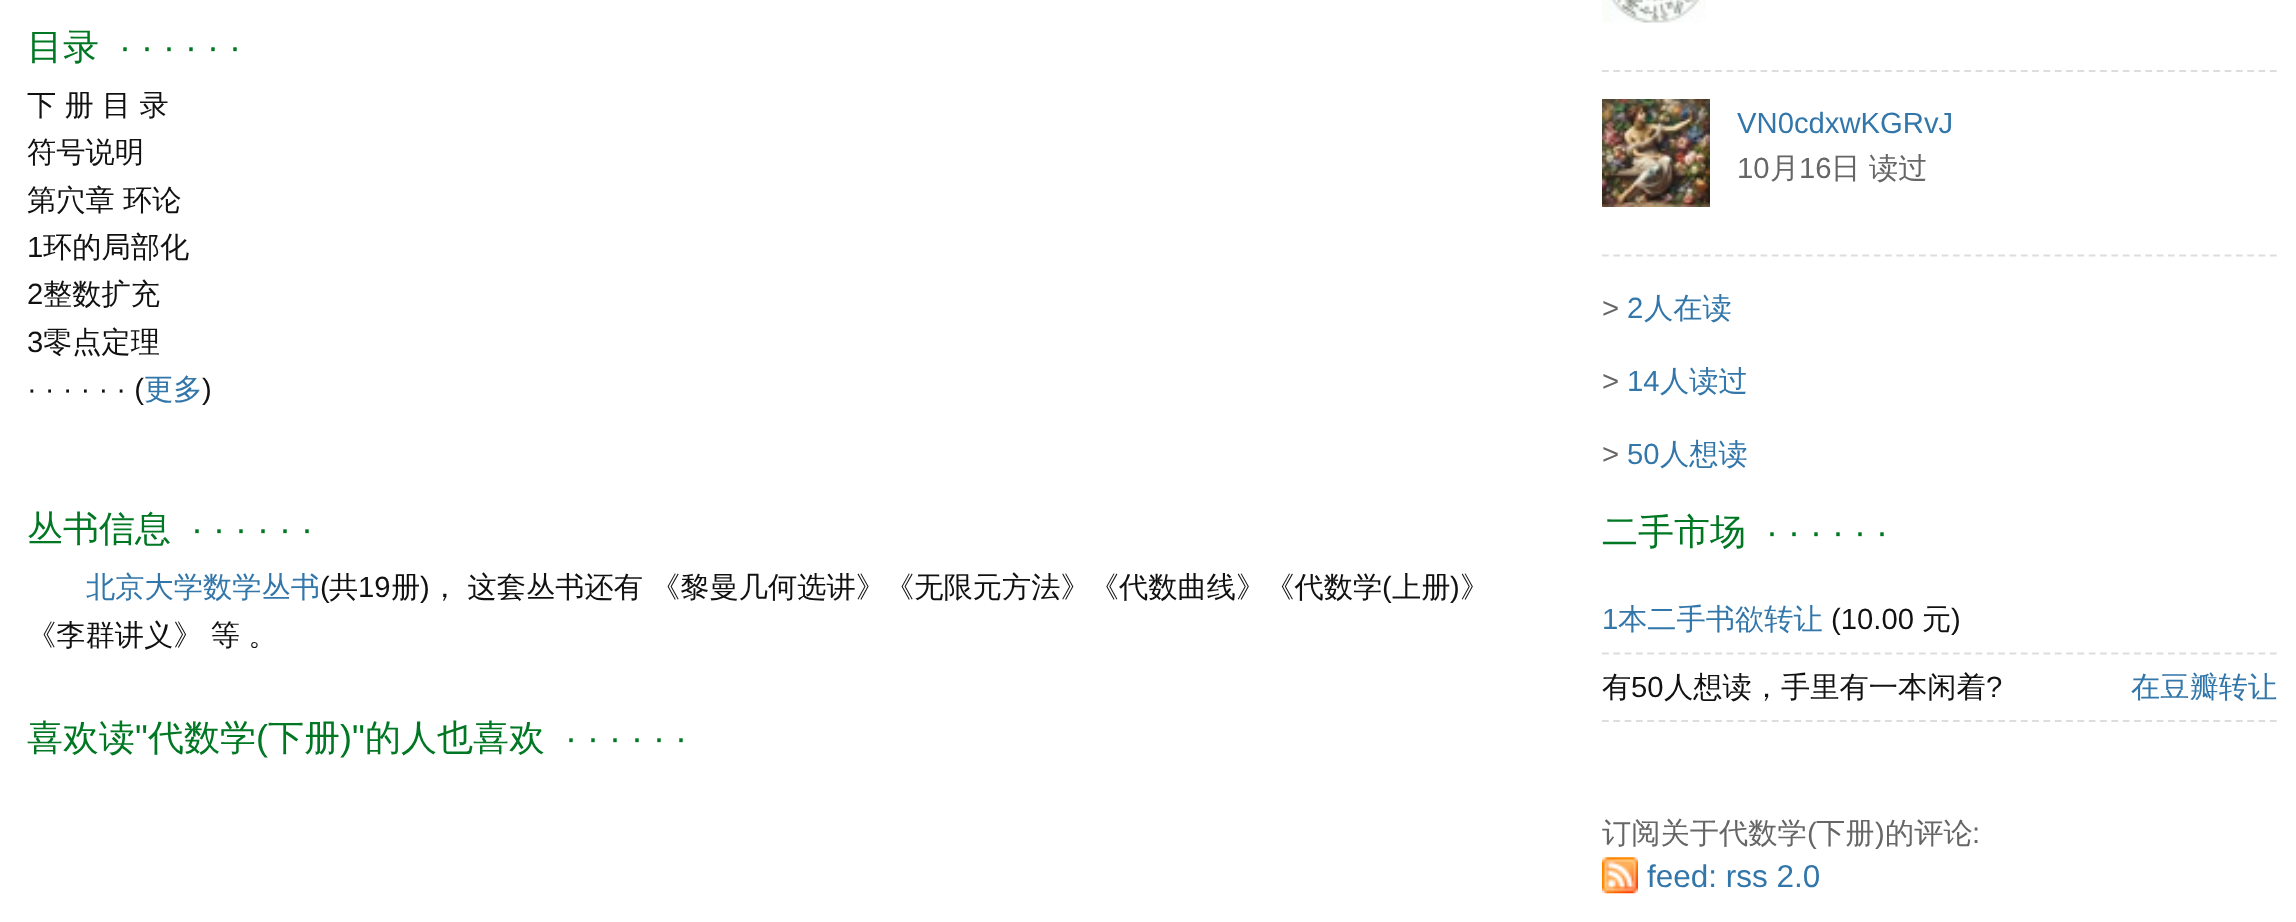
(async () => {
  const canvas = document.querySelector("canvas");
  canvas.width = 2296;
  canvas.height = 922;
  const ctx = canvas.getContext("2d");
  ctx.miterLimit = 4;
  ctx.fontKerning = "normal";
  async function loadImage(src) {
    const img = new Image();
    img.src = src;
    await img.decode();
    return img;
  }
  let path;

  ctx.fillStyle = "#ffffff";
  ctx.fillRect(0, 0, 2296, 922);
  ctx.drawImage(await loadImage("img/1.png"), 1602, 0, 104, 23);
  path = new Path2D("M1602 71H2277");
  ctx.strokeStyle = "#dddddd";
  ctx.lineWidth = 2.2;
  ctx.setLineDash([6.75, 4.57]);
  ctx.stroke(path);
  ctx.drawImage(await loadImage("img/2.png"), 1602, 99, 108, 108);
  path = new Path2D("M1602 255.5H2277");
  ctx.stroke(path);
  path = new Path2D("M1602 653.5H2277");
  ctx.stroke(path);
  path = new Path2D("M1602 721H2277");
  ctx.stroke(path);
  ctx.drawImage(await loadImage("img/3.png"), 1602, 857, 36, 37);
  ctx.font = "500 36px WenQuanYi Zen Hei";
  ctx.fillStyle = "#007722";
  ctx.fillText("目录", 27, 59);
  ctx.font = "36px Liberation Sans";
  ctx.fillText("· · · · · ·", 119, 59);
  ctx.wordSpacing = "-0.5px";
  ctx.font = "500 29.25px WenQuanYi Zen Hei";
  ctx.fillStyle = "#111111";
  ctx.fillText("下 册 目 录", 27, 115);
  ctx.wordSpacing = "0px";
  ctx.fillText("符号说明", 27, 162);
  ctx.wordSpacing = "-0.5px";
  ctx.fillText("第穴章 环论", 27, 210);
  ctx.wordSpacing = "0px";
  ctx.font = "29.25px Liberation Sans";
  ctx.fillText("1", 27, 257);
  ctx.font = "500 29.25px WenQuanYi Zen Hei";
  ctx.fillText("环的局部化", 43, 257);
  ctx.font = "29.25px Liberation Sans";
  ctx.fillText("2", 27, 304);
  ctx.font = "500 29.25px WenQuanYi Zen Hei";
  ctx.fillText("整数扩充", 43, 304);
  ctx.font = "29.25px Liberation Sans";
  ctx.fillText("3", 27, 352);
  ctx.font = "500 29.25px WenQuanYi Zen Hei";
  ctx.fillText("零点定理", 43, 352);
  ctx.font = "29.25px Liberation Sans";
  ctx.fillText("· · · · · · (", 27, 399);
  ctx.font = "500 29.25px WenQuanYi Zen Hei";
  ctx.fillStyle = "#3377aa";
  ctx.fillText("更多", 144, 399);
  ctx.font = "29.25px Liberation Sans";
  ctx.fillStyle = "#111111";
  ctx.fillText(")", 202, 399);
  ctx.font = "500 36px WenQuanYi Zen Hei";
  ctx.fillStyle = "#007722";
  ctx.fillText("丛书信息", 27, 541);
  ctx.font = "36px Liberation Sans";
  ctx.fillText("· · · · · ·", 191, 541);
  ctx.font = "500 29.25px WenQuanYi Zen Hei";
  ctx.fillStyle = "#3377aa";
  ctx.fillText("北京大学数学丛书", 86, 597);
  ctx.font = "29.25px Liberation Sans";
  ctx.fillStyle = "#111111";
  ctx.fillText("(", 320, 597);
  ctx.font = "500 29.25px WenQuanYi Zen Hei";
  ctx.fillText("共", 329, 597);
  ctx.font = "29.25px Liberation Sans";
  ctx.fillText("19", 358, 597);
  ctx.font = "500 29.25px WenQuanYi Zen Hei";
  ctx.fillText("册", 391, 597);
  ctx.font = "29.25px Liberation Sans";
  ctx.fillText(")", 420, 597);
  ctx.wordSpacing = "-0.5px";
  ctx.font = "500 29.25px WenQuanYi Zen Hei";
  ctx.fillText("， 这套丛书还有", 430, 597);
  ctx.wordSpacing = "0px";
  ctx.fillText("《黎曼几何选讲》《无限元方法》《代数曲线》《代数学", 651, 597);
  ctx.font = "29.25px Liberation Sans";
  ctx.fillText("(", 1382, 597);
  ctx.font = "500 29.25px WenQuanYi Zen Hei";
  ctx.fillText("上册", 1392, 597);
  ctx.font = "29.25px Liberation Sans";
  ctx.fillText(")", 1450, 597);
  ctx.font = "500 29.25px WenQuanYi Zen Hei";
  ctx.fillText("》", 1460, 597);
  ctx.wordSpacing = "-0.5px";
  ctx.fillText("《李群讲义》 等 。", 27, 645);
  ctx.wordSpacing = "0px";
  ctx.font = "500 36px WenQuanYi Zen Hei";
  ctx.fillStyle = "#007722";
  ctx.fillText("喜欢读", 27, 750);
  ctx.font = "36px Liberation Sans";
  ctx.fillText("\"", 135, 750);
  ctx.font = "500 36px WenQuanYi Zen Hei";
  ctx.fillText("代数学", 148, 750);
  ctx.font = "36px Liberation Sans";
  ctx.fillText("(", 256, 750);
  ctx.font = "500 36px WenQuanYi Zen Hei";
  ctx.fillText("下册", 268, 750);
  ctx.font = "36px Liberation Sans";
  ctx.fillText(")\"", 340, 750);
  ctx.font = "500 36px WenQuanYi Zen Hei";
  ctx.fillText("的人也喜欢", 365, 750);
  ctx.font = "36px Liberation Sans";
  ctx.fillText("· · · · · ·", 565, 750);
  ctx.font = "29.25px Liberation Sans";
  ctx.fillStyle = "#3377aa";
  ctx.fillText("VN0cdxwKGRvJ", 1737, 133);
  ctx.fillStyle = "#666666";
  ctx.fillText("10", 1737, 178);
  ctx.font = "500 29.25px WenQuanYi Zen Hei";
  ctx.fillText("月", 1770, 178);
  ctx.font = "29.25px Liberation Sans";
  ctx.fillText("16", 1799, 178);
  ctx.font = "500 29.25px WenQuanYi Zen Hei";
  ctx.fillText("日", 1831, 178);
  ctx.fillText("读过", 1869, 178);
  ctx.font = "29.25px Liberation Sans";
  ctx.fillText(">", 1602, 318);
  ctx.fillStyle = "#3377aa";
  ctx.fillText("2", 1627, 318);
  ctx.font = "500 29.25px WenQuanYi Zen Hei";
  ctx.fillText("人在读", 1644, 318);
  ctx.font = "29.25px Liberation Sans";
  ctx.fillStyle = "#666666";
  ctx.fillText(">", 1602, 391);
  ctx.fillStyle = "#3377aa";
  ctx.fillText("14", 1627, 391);
  ctx.font = "500 29.25px WenQuanYi Zen Hei";
  ctx.fillText("人读过", 1660, 391);
  ctx.font = "29.25px Liberation Sans";
  ctx.fillStyle = "#666666";
  ctx.fillText(">", 1602, 464);
  ctx.fillStyle = "#3377aa";
  ctx.fillText("50", 1627, 464);
  ctx.font = "500 29.25px WenQuanYi Zen Hei";
  ctx.fillText("人想读", 1660, 464);
  ctx.font = "500 36px WenQuanYi Zen Hei";
  ctx.fillStyle = "#007722";
  ctx.fillText("二手市场", 1602, 544);
  ctx.font = "36px Liberation Sans";
  ctx.fillText("· · · · · ·", 1766, 544);
  ctx.font = "29.25px Liberation Sans";
  ctx.fillStyle = "#3377aa";
  ctx.fillText("1", 1602, 629);
  ctx.font = "500 29.25px WenQuanYi Zen Hei";
  ctx.fillText("本二手书欲转让", 1618, 629);
  ctx.font = "29.25px Liberation Sans";
  ctx.fillStyle = "#111111";
  ctx.fillText("(10.00", 1831, 629);
  ctx.font = "500 29.25px WenQuanYi Zen Hei";
  ctx.fillText("元", 1922, 629);
  ctx.font = "29.25px Liberation Sans";
  ctx.fillText(")", 1951, 629);
  ctx.font = "500 29.25px WenQuanYi Zen Hei";
  ctx.fillText("有", 1602, 697);
  ctx.font = "29.25px Liberation Sans";
  ctx.fillText("50", 1631, 697);
  ctx.font = "500 29.25px WenQuanYi Zen Hei";
  ctx.fillText("人想读，手里有一本闲着", 1664, 697);
  ctx.font = "29.25px Liberation Sans";
  ctx.fillText("?", 1986, 697);
  ctx.font = "500 29.25px WenQuanYi Zen Hei";
  ctx.fillStyle = "#3377aa";
  ctx.fillText("在豆瓣转让", 2131, 697);
  ctx.fillStyle = "#666666";
  ctx.fillText("订阅关于代数学", 1602, 843);
  ctx.font = "29.25px Liberation Sans";
  ctx.fillText("(", 1807, 843);
  ctx.font = "500 29.25px WenQuanYi Zen Hei";
  ctx.fillText("下册", 1816, 843);
  ctx.font = "29.25px Liberation Sans";
  ctx.fillText(")", 1875, 843);
  ctx.font = "500 29.25px WenQuanYi Zen Hei";
  ctx.fillText("的评论", 1885, 843);
  ctx.font = "29.25px Liberation Sans";
  ctx.fillText(":", 1972, 843);
  ctx.font = "31.5px Liberation Sans";
  ctx.fillStyle = "#3377aa";
  ctx.fillText("feed: rss 2.0", 1647, 887);
})();
